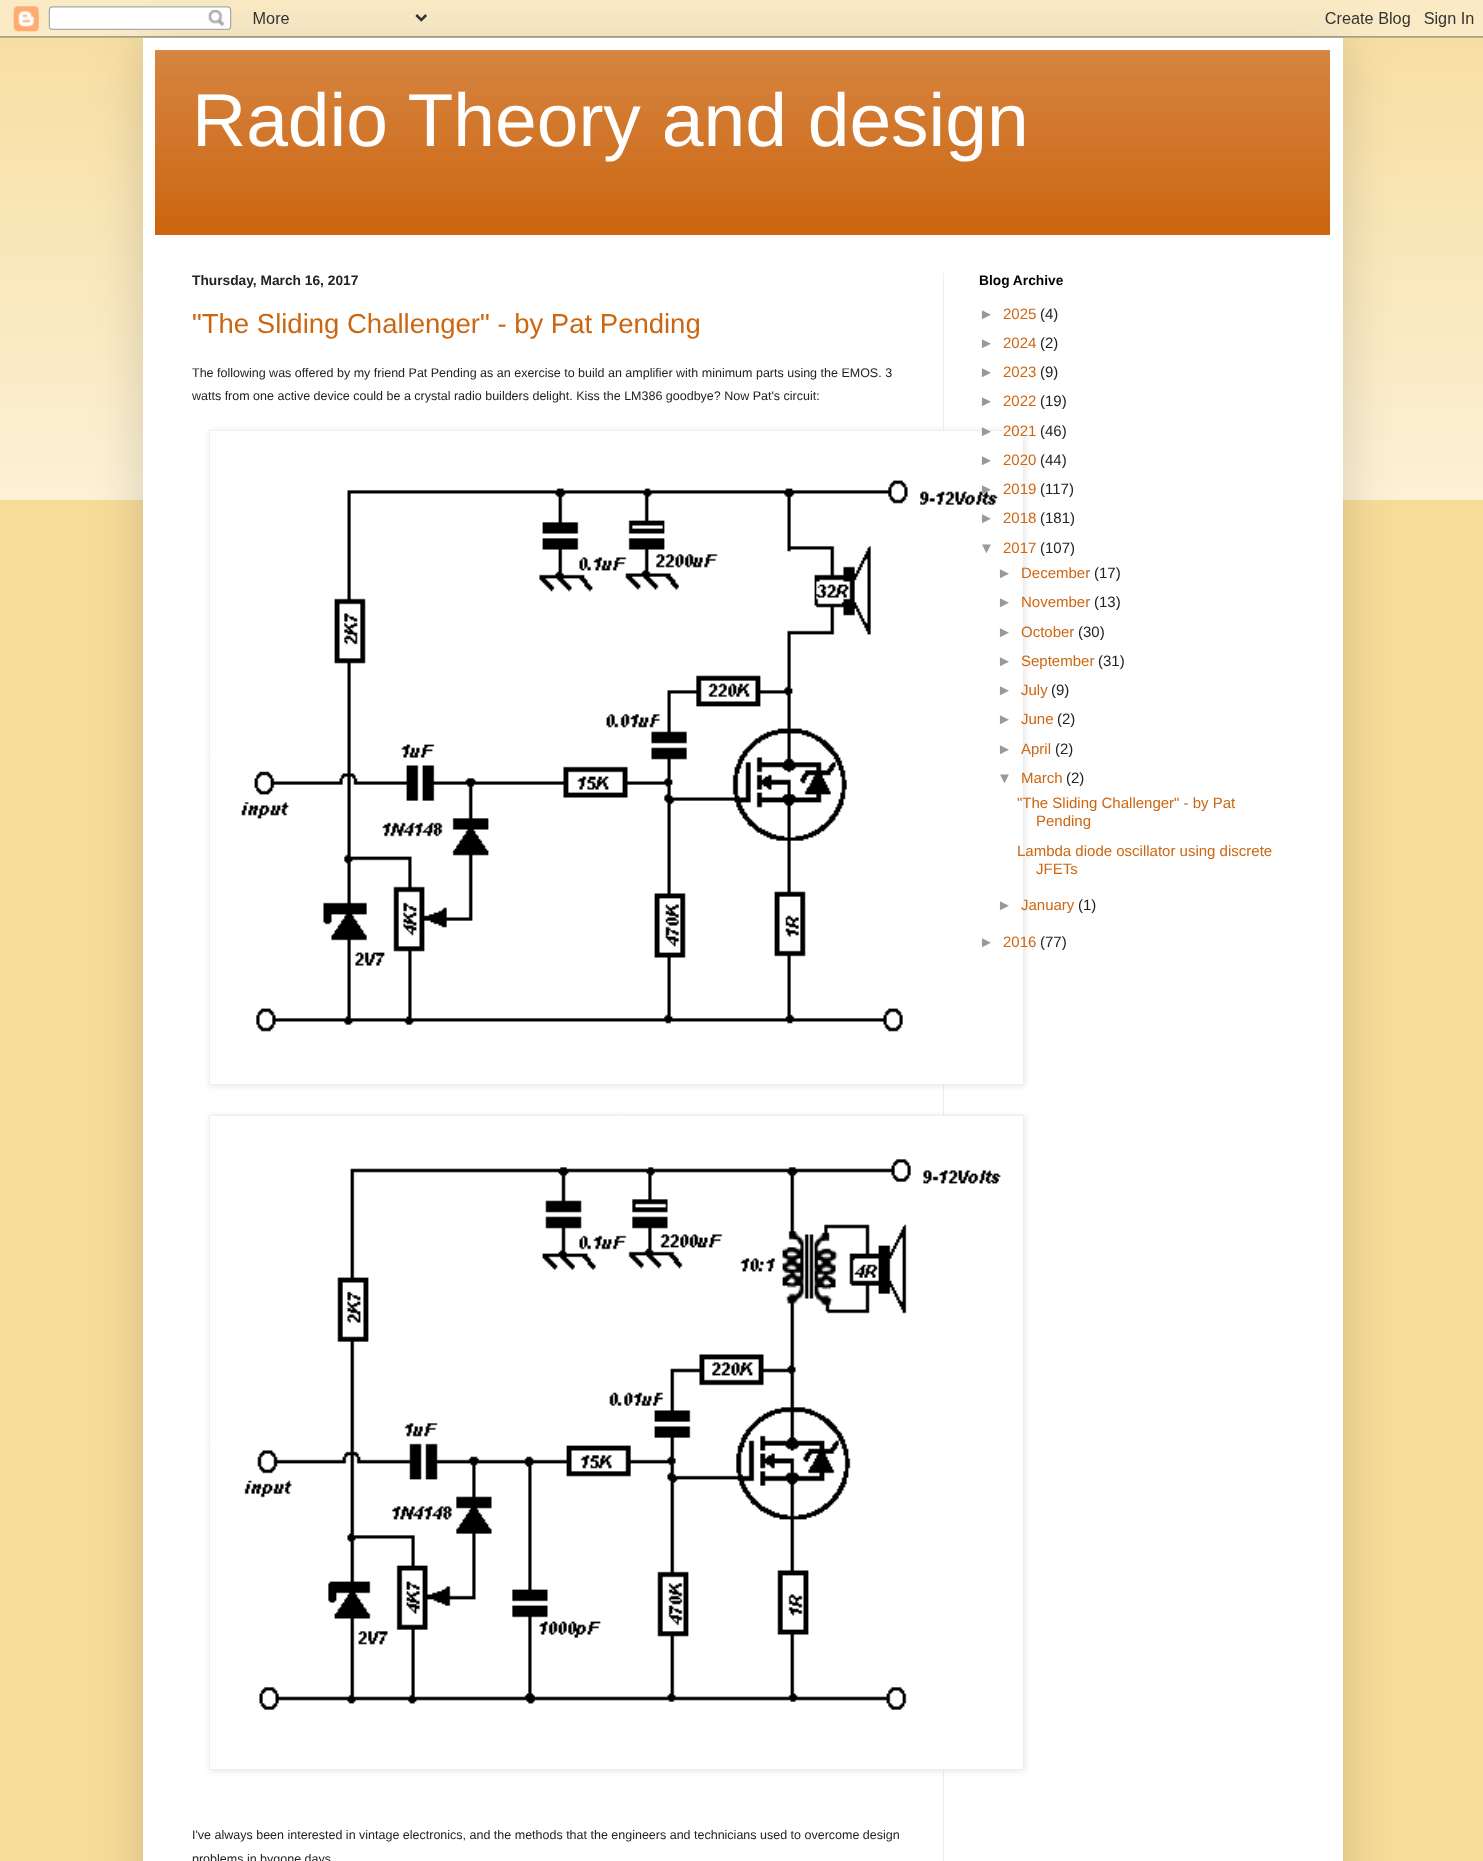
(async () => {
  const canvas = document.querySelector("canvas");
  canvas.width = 1483;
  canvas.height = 1861;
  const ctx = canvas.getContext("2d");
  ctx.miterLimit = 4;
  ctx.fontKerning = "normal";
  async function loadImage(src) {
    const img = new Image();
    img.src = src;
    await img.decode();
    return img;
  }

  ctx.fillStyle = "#f7dc99";
  ctx.fillRect(0, 0, 1483, 1861);
  ctx.drawImage(await loadImage("img/1.png"), 0, 0, 1483, 500);
  ctx.fillStyle = "rgba(0, 0, 0, 0.15)";
  ctx.filter = "blur(25px)";
  ctx.beginPath();
  ctx.rect(143, 38, 1200, 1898);
  ctx.fill();
  ctx.filter = "none";
  ctx.drawImage(await loadImage("img/2.png"), 0, 0, 1483, 38);
  ctx.fillStyle = "#ffffff";
  ctx.fillRect(143, 38, 1200, 1823);
  ctx.fillStyle = "#cc6611";
  ctx.fillRect(155, 50, 1175, 185);
  ctx.drawImage(await loadImage("img/3.png"), 155, 50, 1175, 166);
  ctx.fillStyle = "#eeeeee";
  ctx.fillRect(943, 273, 1, 1588);
  ctx.fillStyle = "rgba(0, 0, 0, 0.1)";
  ctx.filter = "blur(3px)";
  ctx.beginPath();
  ctx.rect(210, 431, 815, 655);
  ctx.fill();
  ctx.filter = "none";
  ctx.fillStyle = "#ffffff";
  ctx.beginPath();
  ctx.rect(209.5, 430.5, 814, 654);
  ctx.fill();
  ctx.strokeStyle = "#eeeeee";
  ctx.stroke();
  ctx.drawImage(await loadImage("img/4.png"), 241, 480, 757, 552);
  ctx.fillStyle = "rgba(0, 0, 0, 0.1)";
  ctx.filter = "blur(3px)";
  ctx.beginPath();
  ctx.rect(210, 1116, 815, 655);
  ctx.fill();
  ctx.filter = "none";
  ctx.fillStyle = "#ffffff";
  ctx.beginPath();
  ctx.rect(209.5, 1115.5, 814, 654);
  ctx.fill();
  ctx.stroke();
  ctx.drawImage(await loadImage("img/5.png"), 244, 1159, 757, 551);
  ctx.font = "75px Liberation Sans";
  ctx.fillText("Radio Theory and design", 192, 146);
  ctx.font = "bold 13.75px Liberation Sans";
  ctx.fillStyle = "#222222";
  ctx.fillText("Thursday, March 16, 2017", 192, 285);
  ctx.font = "27.5px Liberation Sans";
  ctx.fillStyle = "#cc6611";
  ctx.fillText("\"The Sliding Challenger\" - by Pat Pending", 192, 333);
  ctx.font = "12.5px Liberation Sans";
  ctx.fillStyle = "#222222";
  for (const [text, x, y] of [
    ["The following was offered by my friend Pat Pending as an exercise to build an amplifier with minimum parts using the EMOS. 3", 192, 377],
    ["watts from one active device could be a crystal radio builders delight. Kiss the LM386 goodbye? Now Pat's circuit:", 192, 400],
    ["I've always been interested in vintage electronics, and the methods that the engineers and technicians used to overcome design", 192, 1839],
    ["problems in bygone days", 192, 1863],
  ]) {
    ctx.fillText(text, x, y);
  }
  ctx.font = "bold 13.75px Liberation Sans";
  ctx.fillStyle = "#000000";
  ctx.fillText("Blog Archive", 979, 285);
  ctx.font = "15px Liberation Sans";
  ctx.fillStyle = "#999999";
  ctx.fillText("►", 979, 319);
  ctx.fillStyle = "#cc6611";
  ctx.fillText("2025", 1003, 319);
  ctx.fillStyle = "#222222";
  ctx.fillText("(4)", 1040, 319);
  ctx.fillStyle = "#999999";
  ctx.fillText("►", 979, 348);
  ctx.fillStyle = "#cc6611";
  ctx.fillText("2024", 1003, 348);
  ctx.fillStyle = "#222222";
  ctx.fillText("(2)", 1040, 348);
  ctx.fillStyle = "#999999";
  ctx.fillText("►", 979, 377);
  ctx.fillStyle = "#cc6611";
  ctx.fillText("2023", 1003, 377);
  ctx.fillStyle = "#222222";
  ctx.fillText("(9)", 1040, 377);
  ctx.fillStyle = "#999999";
  ctx.fillText("►", 979, 406);
  ctx.fillStyle = "#cc6611";
  ctx.fillText("2022", 1003, 406);
  ctx.fillStyle = "#222222";
  ctx.fillText("(19)", 1040, 406);
  ctx.fillStyle = "#999999";
  ctx.fillText("►", 979, 436);
  ctx.fillStyle = "#cc6611";
  ctx.fillText("2021", 1003, 436);
  ctx.fillStyle = "#222222";
  ctx.fillText("(46)", 1040, 436);
  ctx.fillStyle = "#999999";
  ctx.fillText("►", 979, 465);
  ctx.fillStyle = "#cc6611";
  ctx.fillText("2020", 1003, 465);
  ctx.fillStyle = "#222222";
  ctx.fillText("(44)", 1040, 465);
  ctx.fillStyle = "#999999";
  ctx.fillText("►", 979, 494);
  ctx.fillStyle = "#cc6611";
  ctx.fillText("2019", 1003, 494);
  ctx.fillStyle = "#222222";
  ctx.fillText("(117)", 1040, 494);
  ctx.fillStyle = "#999999";
  ctx.fillText("►", 979, 523);
  ctx.fillStyle = "#cc6611";
  ctx.fillText("2018", 1003, 523);
  ctx.fillStyle = "#222222";
  ctx.fillText("(181)", 1040, 523);
  ctx.fillStyle = "#999999";
  ctx.fillText("▼", 979, 553);
  ctx.fillStyle = "#cc6611";
  ctx.fillText("2017", 1003, 553);
  ctx.fillStyle = "#222222";
  ctx.fillText("(107)", 1040, 553);
  ctx.fillStyle = "#999999";
  ctx.fillText("►", 997, 578);
  ctx.fillStyle = "#cc6611";
  ctx.fillText("December", 1021, 578);
  ctx.fillStyle = "#222222";
  ctx.fillText("(17)", 1094, 578);
  ctx.fillStyle = "#999999";
  ctx.fillText("►", 997, 607);
  ctx.fillStyle = "#cc6611";
  ctx.fillText("November", 1021, 607);
  ctx.fillStyle = "#222222";
  ctx.fillText("(13)", 1094, 607);
  ctx.fillStyle = "#999999";
  ctx.fillText("►", 997, 637);
  ctx.fillStyle = "#cc6611";
  ctx.fillText("October", 1021, 637);
  ctx.fillStyle = "#222222";
  ctx.fillText("(30)", 1078, 637);
  ctx.fillStyle = "#999999";
  ctx.fillText("►", 997, 666);
  ctx.fillStyle = "#cc6611";
  ctx.fillText("September", 1021, 666);
  ctx.fillStyle = "#222222";
  ctx.fillText("(31)", 1098, 666);
  ctx.fillStyle = "#999999";
  ctx.fillText("►", 997, 695);
  ctx.fillStyle = "#cc6611";
  ctx.fillText("July", 1021, 695);
  ctx.fillStyle = "#222222";
  ctx.fillText("(9)", 1051, 695);
  ctx.fillStyle = "#999999";
  ctx.fillText("►", 997, 724);
  ctx.fillStyle = "#cc6611";
  ctx.fillText("June", 1021, 724);
  ctx.fillStyle = "#222222";
  ctx.fillText("(2)", 1057, 724);
  ctx.fillStyle = "#999999";
  ctx.fillText("►", 997, 754);
  ctx.fillStyle = "#cc6611";
  ctx.fillText("April", 1021, 754);
  ctx.fillStyle = "#222222";
  ctx.fillText("(2)", 1055, 754);
  ctx.fillStyle = "#999999";
  ctx.fillText("▼", 997, 783);
  ctx.fillStyle = "#cc6611";
  ctx.fillText("March", 1021, 783);
  ctx.fillStyle = "#222222";
  ctx.fillText("(2)", 1066, 783);
  ctx.fillStyle = "#cc6611";
  for (const [text, x, y] of [
    ["\"The Sliding Challenger\" - by Pat", 1017, 808],
    ["Pending", 1036, 826],
    ["Lambda diode oscillator using discrete", 1017, 856],
    ["JFETs", 1036, 874],
  ]) {
    ctx.fillText(text, x, y);
  }
  ctx.fillStyle = "#999999";
  ctx.fillText("►", 997, 910);
  ctx.fillStyle = "#cc6611";
  ctx.fillText("January", 1021, 910);
  ctx.fillStyle = "#222222";
  ctx.fillText("(1)", 1078, 910);
  ctx.fillStyle = "#999999";
  ctx.fillText("►", 979, 947);
  ctx.fillStyle = "#cc6611";
  ctx.fillText("2016", 1003, 947);
  ctx.fillStyle = "#222222";
  ctx.fillText("(77)", 1040, 947);
})();
